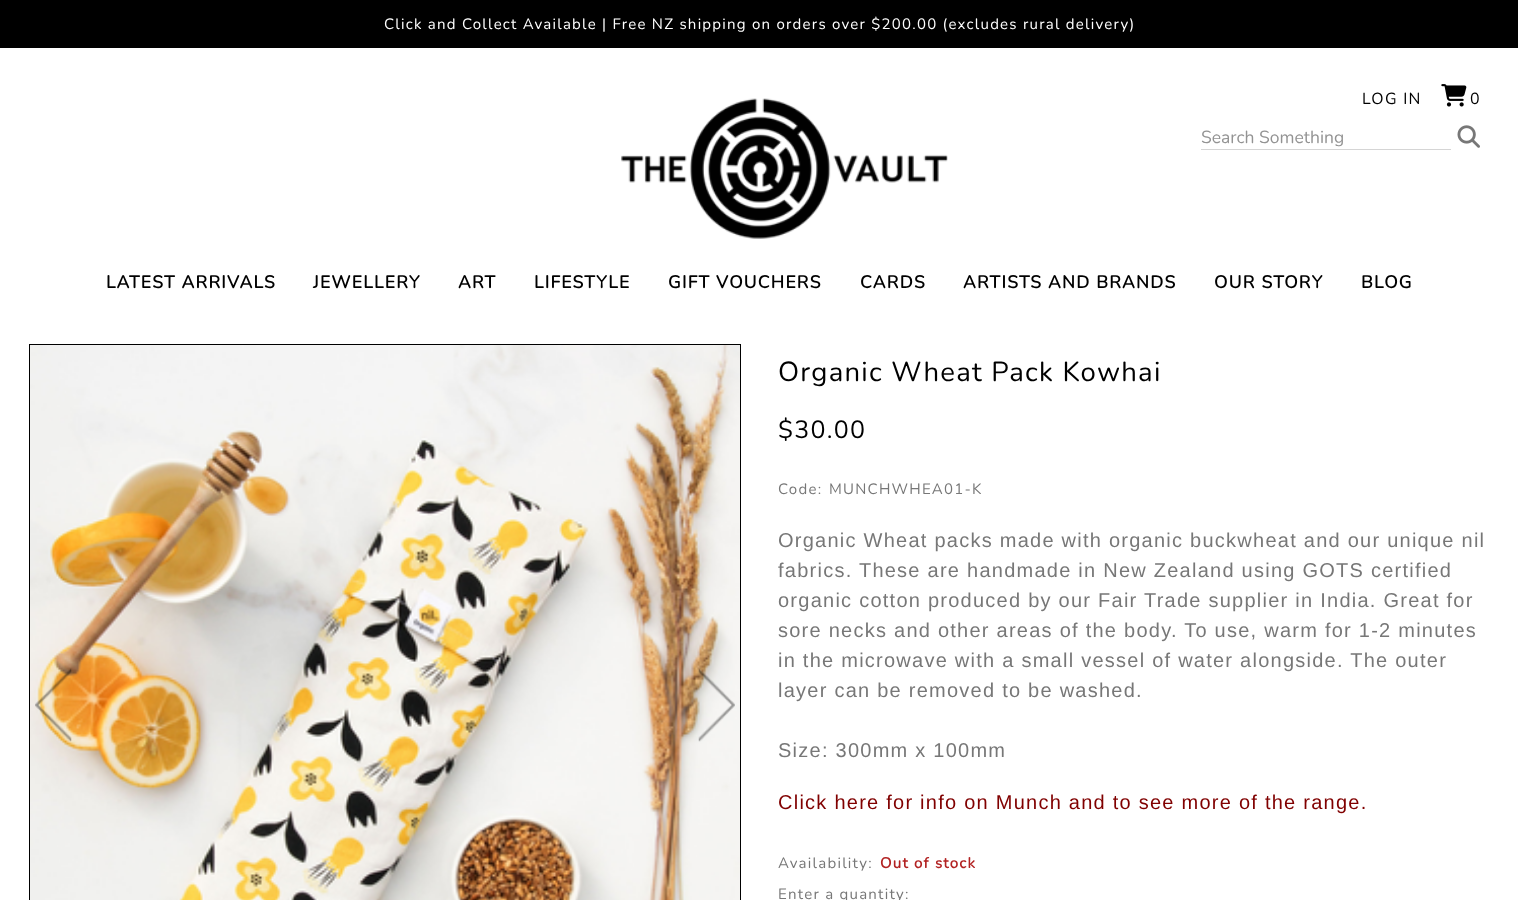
(async () => {
  const canvas = document.querySelector("canvas");
  canvas.width = 1518;
  canvas.height = 900;
  const ctx = canvas.getContext("2d");
  ctx.miterLimit = 4;
  ctx.fontKerning = "normal";
  async function loadImage(src) {
    const img = new Image();
    img.src = src;
    await img.decode();
    return img;
  }

  ctx.fillStyle = "#ffffff";
  ctx.fillRect(0, 0, 1518, 900);
  ctx.fillStyle = "#000000";
  ctx.fillRect(0, 0, 1518, 48);
  ctx.drawImage(await loadImage("img/1.png"), 621, 98, 327, 141);
  ctx.fillStyle = "#d5d5d5";
  ctx.fillRect(1201, 149, 250, 1);
  ctx.drawImage(await loadImage("img/2.png"), 1457, 125, 23, 23);
  ctx.drawImage(await loadImage("img/3.png"), 1441, 84, 26, 23);
  ctx.fillStyle = "#000000";
  ctx.fillRect(29, 344, 712, 556);
  ctx.drawImage(await loadImage("img/4.png"), 30, 345, 710, 555);
  ctx.drawImage(await loadImage("img/5.png"), 35, 668, 37, 74);
  ctx.drawImage(await loadImage("img/6.png"), 698, 668, 37, 74);
  ctx.letterSpacing = "1.25px";
  ctx.font = "200 15px Nunito";
  ctx.fillStyle = "#ffffff";
  ctx.fillText("Click and Collect Available | Free NZ shipping on orders over $200.00 (excludes rural delivery)", 384, 29);
  ctx.letterSpacing = "0px";
  ctx.font = "200 17.5px Nunito";
  ctx.fillStyle = "#939393";
  ctx.fillText("Search Something", 1201, 143);
  ctx.letterSpacing = "1.25px";
  ctx.font = "200 16px Nunito";
  ctx.fillStyle = "#000000";
  ctx.fillText("LOG IN", 1362, 104);
  ctx.fillText("0", 1470, 104);
  ctx.font = "bold 17.5px Nunito";
  for (const [text, x, y] of [
    ["LATEST ARRIVALS", 106, 288],
    ["JEWELLERY", 313, 288],
    ["ART", 458, 288],
    ["LIFESTYLE", 534, 288],
    ["GIFT VOUCHERS", 668, 288],
    ["CARDS", 860, 288],
    ["ARTISTS AND BRANDS", 963, 288],
    ["OUR STORY", 1214, 288],
    ["BLOG", 1361, 288],
  ]) {
    ctx.fillText(text, x, y);
  }
  ctx.font = "200 27.5px Nunito";
  ctx.fillText("Organic Wheat Pack Kowhai", 778, 381);
  ctx.font = "200 25px Nunito";
  ctx.fillText("$30.00", 778, 438);
  ctx.font = "200 15px Nunito";
  ctx.fillStyle = "#777777";
  ctx.fillText("Code:", 778, 494);
  ctx.fillText("MUNCHWHEA01-K", 829, 494);
  ctx.font = "20px Liberation Sans";
  for (const [text, x, y] of [
    ["Organic Wheat packs made with organic buckwheat and our unique nil", 778, 547],
    ["fabrics. These are handmade in New Zealand using GOTS certified", 778, 577],
    ["organic cotton produced by our Fair Trade supplier in India. Great for", 778, 607],
    ["sore necks and other areas of the body. To use, warm for 1-2 minutes", 778, 637],
    ["in the microwave with a small vessel of water alongside. The outer", 778, 667],
    ["layer can be removed to be washed.", 778, 697],
    ["Size: 300mm x 100mm", 778, 757],
  ]) {
    ctx.fillText(text, x, y);
  }
  ctx.fillStyle = "#800000";
  ctx.fillText("Click here for info on Munch and to see more of the range.", 778, 809);
  ctx.font = "200 15px Nunito";
  ctx.fillStyle = "#777777";
  ctx.fillText("Availability:", 778, 868);
  ctx.font = "bold 15px Nunito";
  ctx.fillStyle = "#b22222";
  ctx.fillText("Out of stock", 880, 868);
  ctx.font = "200 15px Nunito";
  ctx.fillStyle = "#777777";
  ctx.fillText("Enter a quantity:", 778, 899);
})();
